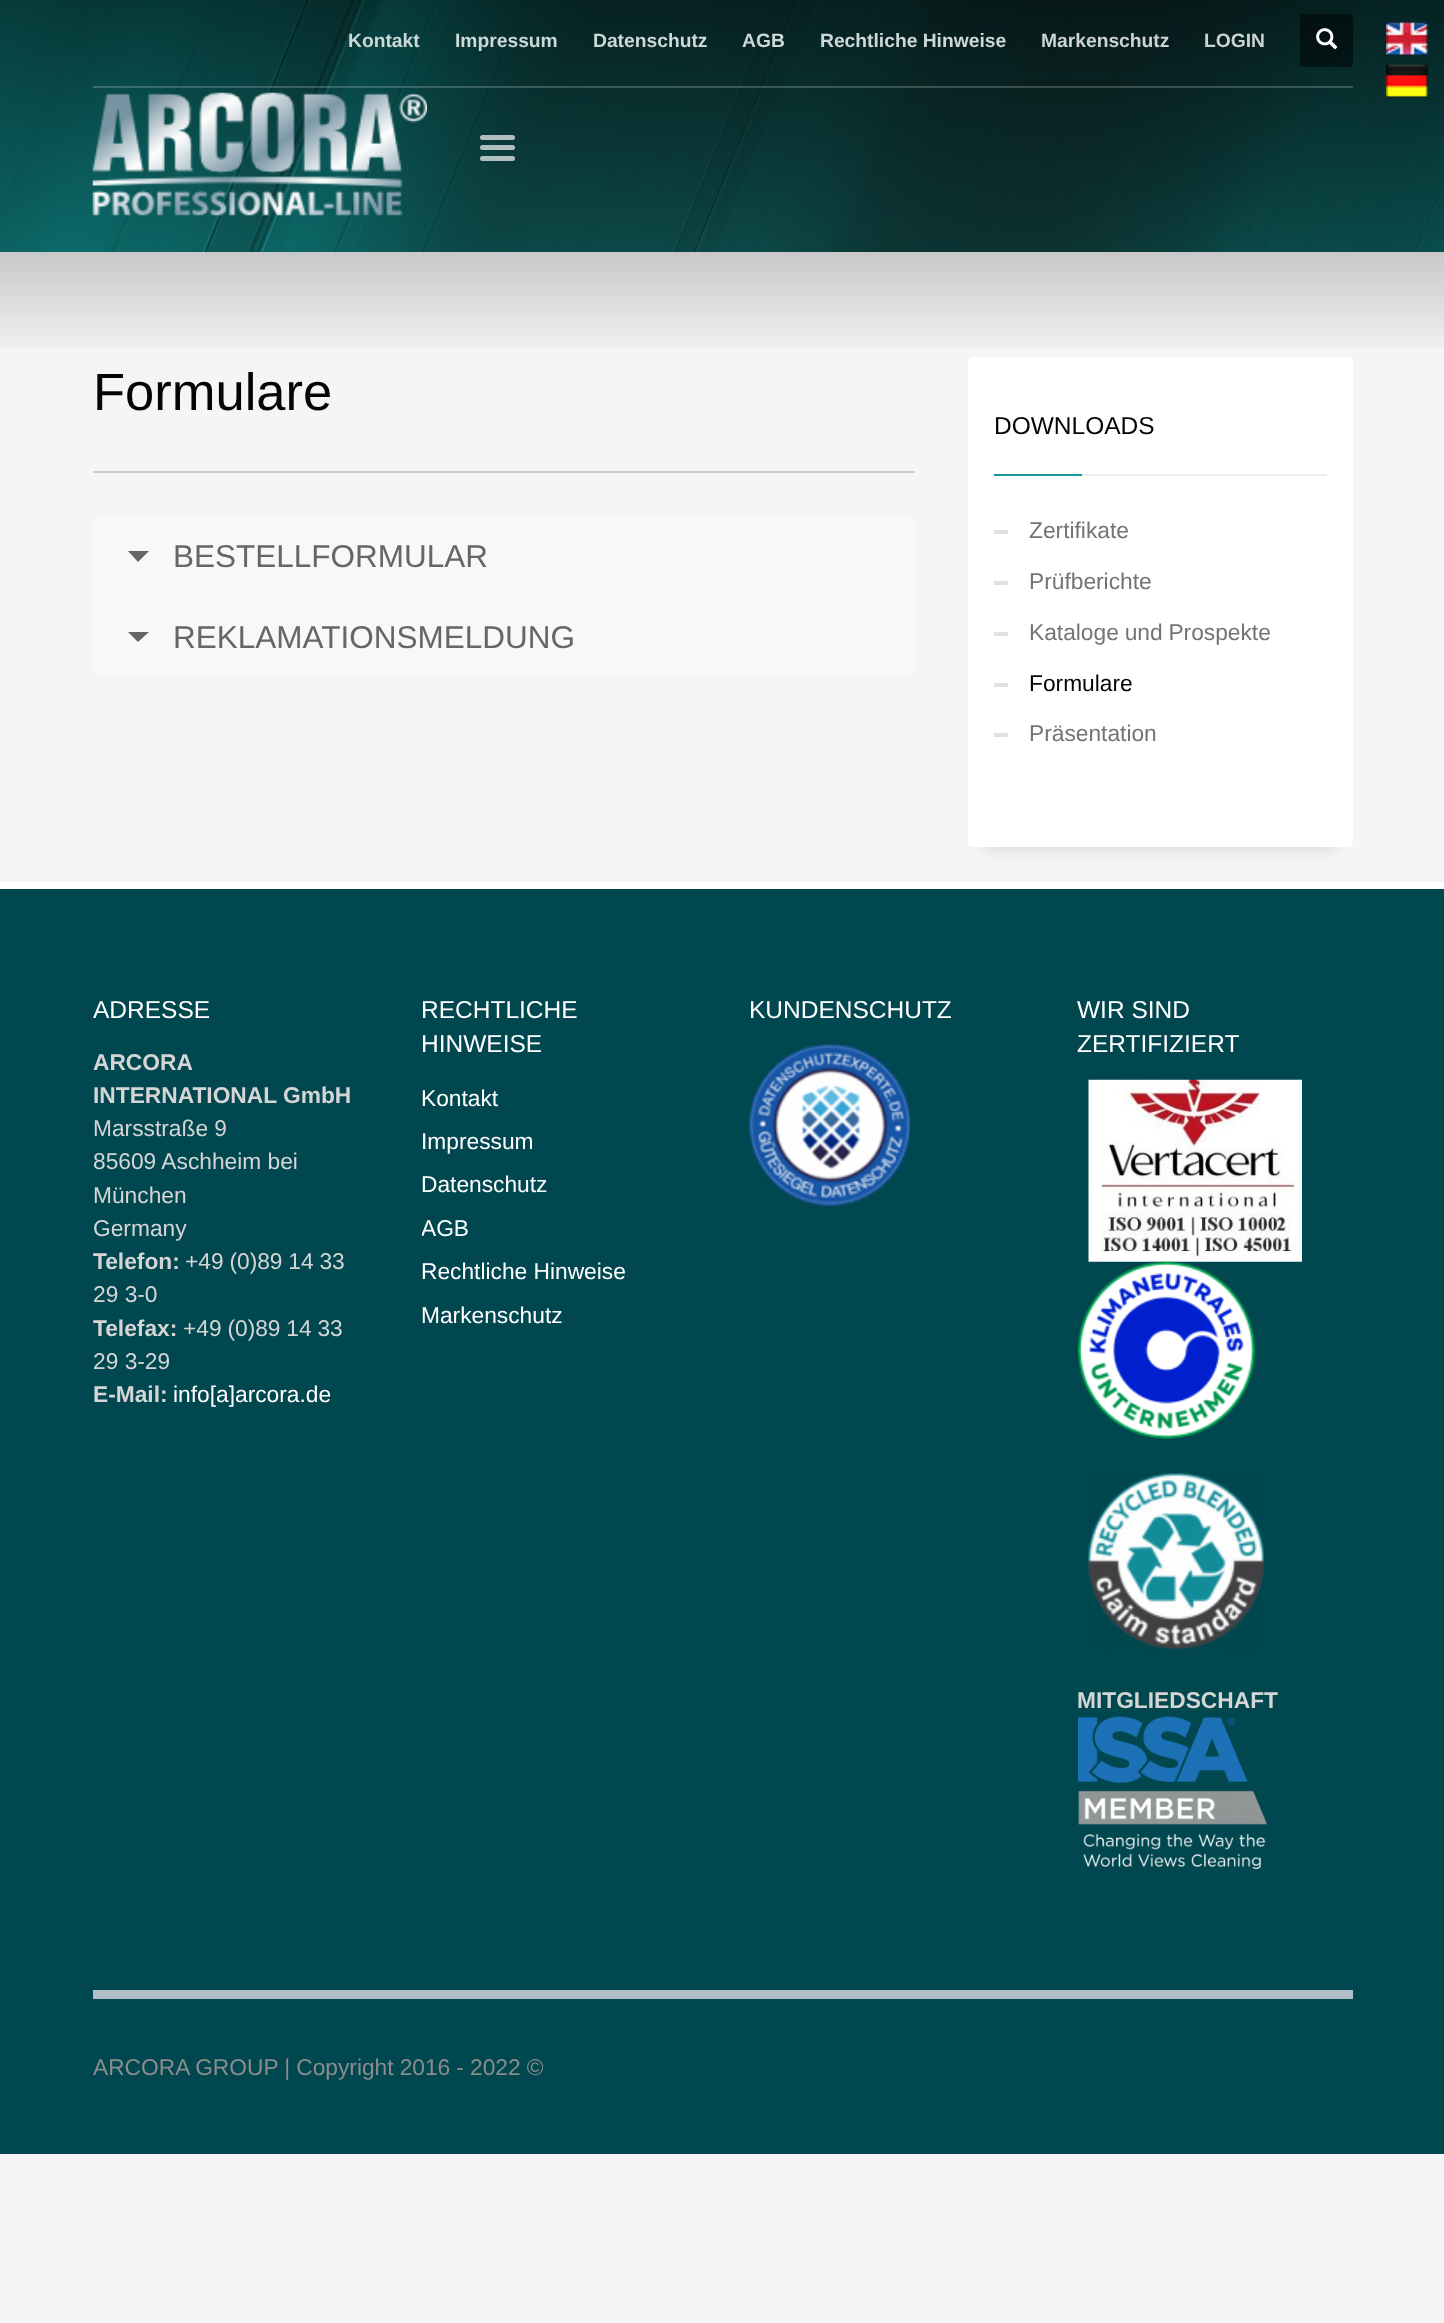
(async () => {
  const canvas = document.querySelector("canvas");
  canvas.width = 1444;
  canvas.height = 2323;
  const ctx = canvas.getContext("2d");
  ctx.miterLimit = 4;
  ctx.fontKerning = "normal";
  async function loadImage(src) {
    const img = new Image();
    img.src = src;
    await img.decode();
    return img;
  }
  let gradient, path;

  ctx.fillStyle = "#f5f5f5";
  ctx.fillRect(0, 0, 1444, 2323);
  ctx.drawImage(await loadImage("img/1.png"), 0, 0, 1444, 252);
  gradient = ctx.createLinearGradient(723, 0, 723, 362);
  gradient.addColorStop(0, "rgba(0, 0, 0, 0.6)");
  gradient.addColorStop(1, "rgba(0, 0, 0, 0)");
  ctx.fillStyle = gradient;
  ctx.fillRect(0, 0, 1444, 349);
  ctx.fillStyle = "rgba(0, 0, 0, 0.5)";
  ctx.beginPath();
  ctx.roundRect(1300, 14, 53, 53, 4);
  ctx.fill();
  ctx.drawImage(await loadImage("img/2.png"), 1316, 28, 22, 22);
  ctx.fillStyle = "rgba(255, 255, 255, 0.2)";
  ctx.fillRect(93, 86, 1260, 2);
  ctx.drawImage(await loadImage("img/3.png"), 92, 92, 335, 124);
  ctx.fillStyle = "rgba(255, 255, 255, 0.68)";
  ctx.beginPath();
  ctx.roundRect(480, 135, 35, 5, 2.5);
  ctx.fill();
  ctx.beginPath();
  ctx.roundRect(480, 145, 35, 5, 2.5);
  ctx.fill();
  ctx.beginPath();
  ctx.roundRect(480, 156, 35, 5, 2.5);
  ctx.fill();
  ctx.fillStyle = "#cbcbcb";
  ctx.fillRect(93, 471, 822, 2);
  ctx.fillStyle = "#f8f8f8";
  ctx.beginPath();
  ctx.roundRect(93, 516, 822, 81, [9, 9, 0, 0]);
  ctx.fill();
  ctx.fillStyle = "#666666";
  path = new Path2D("M128 551H149L138 562Z");
  ctx.fill(path);
  ctx.fillStyle = "#f8f8f8";
  ctx.beginPath();
  ctx.roundRect(93, 597, 822, 80, [0, 0, 9, 9]);
  ctx.fill();
  ctx.fillStyle = "#666666";
  path = new Path2D("M128 632H149L138 642Z");
  ctx.fill(path);
  ctx.fillStyle = "rgba(0, 0, 0, 0.15)";
  ctx.filter = "blur(9px)";
  ctx.beginPath();
  ctx.rect(985, 392, 350, 455);
  ctx.fill();
  ctx.filter = "none";
  ctx.fillStyle = "#ffffff";
  ctx.beginPath();
  ctx.roundRect(968, 357, 385, 490, 5);
  ctx.fill();
  for (const [x, y, w, h, color] of [
    [994, 474, 88, 2, "#17979b"],
    [1082, 474, 245, 2, "#ececec"],
    [994, 530, 14, 4, "#e1e1e1"],
    [994, 581, 14, 4, "#e1e1e1"],
    [994, 632, 14, 4, "#e1e1e1"],
    [994, 683, 14, 4, "#e1e1e1"],
    [994, 733, 14, 4, "#e1e1e1"],
    [0, 889, 1444, 1265, "#00474f"],
    [0, 882, 1444, 7, "#ffffff"],
  ]) {
    ctx.fillStyle = color;
    ctx.fillRect(x, y, w, h);
  }
  ctx.drawImage(await loadImage("img/4.png"), 749, 1044, 161, 162);
  ctx.drawImage(await loadImage("img/5.png"), 1088, 1079, 214, 183);
  ctx.drawImage(await loadImage("img/6.png"), 1078, 1261, 177, 178);
  ctx.drawImage(await loadImage("img/7.png"), 1088, 1473, 176, 176);
  ctx.drawImage(await loadImage("img/8.png"), 1078, 1716, 189, 153);
  ctx.fillStyle = "#b1bdc9";
  ctx.fillRect(93, 1990, 1260, 9);
  ctx.drawImage(await loadImage("img/9.png"), 1386, 21, 42, 35);
  ctx.drawImage(await loadImage("img/10.png"), 1386, 64, 42, 35);
  ctx.font = "bold 19.25px Liberation Sans";
  ctx.fillStyle = "#cdd8d8";
  for (const [text, x, y] of [
    ["Kontakt", 348, 47],
    ["Impressum", 455, 47],
    ["Datenschutz", 593, 47],
    ["AGB", 742, 47],
    ["Rechtliche Hinweise", 820, 47],
  ]) {
    ctx.fillText(text, x, y);
  }
  ctx.fillStyle = "#cdd2d2";
  ctx.fillText("Markenschutz", 1041, 47);
  ctx.fillText("LOGIN", 1204, 47);
  ctx.font = "52.5px Liberation Sans";
  ctx.fillStyle = "#050505";
  ctx.fillText("Formulare", 93, 410);
  ctx.font = "31.5px Liberation Sans";
  ctx.fillStyle = "#666666";
  ctx.fillText("BESTELLFORMULAR", 173, 567);
  ctx.fillText("REKLAMATIONSMELDUNG", 173, 648);
  ctx.font = "24.5px Liberation Sans";
  ctx.fillStyle = "#050505";
  ctx.fillText("DOWNLOADS", 994, 434);
  ctx.font = "22.75px Liberation Sans";
  ctx.fillStyle = "#747474";
  ctx.fillText("Zertifikate", 1029, 538);
  ctx.fillText("Prüfberichte", 1029, 589);
  ctx.wordSpacing = "-0.5px";
  ctx.fillText("Kataloge und Prospekte", 1029, 640);
  ctx.wordSpacing = "0px";
  ctx.fillStyle = "#050505";
  ctx.fillText("Formulare", 1029, 691);
  ctx.fillStyle = "#747474";
  ctx.fillText("Präsentation", 1029, 741);
  ctx.font = "24.5px Liberation Sans";
  ctx.fillStyle = "#ffffff";
  ctx.fillText("ADRESSE", 93, 1018);
  ctx.font = "bold 22.75px Liberation Sans";
  ctx.fillStyle = "#d5d5d5";
  ctx.fillText("ARCORA", 93, 1070);
  ctx.fillText("INTERNATIONAL GmbH", 93, 1103);
  ctx.font = "22.75px Liberation Sans";
  for (const [text, x, y] of [
    ["Marsstraße 9", 93, 1136],
    ["85609 Aschheim bei", 93, 1169],
    ["München", 93, 1203],
    ["Germany", 93, 1236],
  ]) {
    ctx.fillText(text, x, y);
  }
  ctx.font = "bold 22.75px Liberation Sans";
  ctx.fillText("Telefon:", 93, 1269);
  ctx.wordSpacing = "-0.5px";
  ctx.font = "22.75px Liberation Sans";
  ctx.fillText("+49 (0)89 14 33", 185, 1269);
  ctx.wordSpacing = "0px";
  ctx.fillText("29 3-0", 93, 1302);
  ctx.font = "bold 22.75px Liberation Sans";
  ctx.fillText("Telefax:", 93, 1336);
  ctx.wordSpacing = "-0.5px";
  ctx.font = "22.75px Liberation Sans";
  ctx.fillText("+49 (0)89 14 33", 183, 1336);
  ctx.wordSpacing = "0px";
  ctx.fillText("29 3-29", 93, 1369);
  ctx.font = "bold 22.75px Liberation Sans";
  ctx.fillText("E-Mail:", 93, 1402);
  ctx.font = "22.75px Liberation Sans";
  ctx.fillStyle = "#ffffff";
  ctx.fillText("info[a]arcora.de", 173, 1402);
  ctx.font = "24.5px Liberation Sans";
  ctx.fillText("RECHTLICHE", 421, 1018);
  ctx.fillText("HINWEISE", 421, 1052);
  ctx.font = "22.75px Liberation Sans";
  for (const [text, x, y] of [
    ["Kontakt", 421, 1106],
    ["Impressum", 421, 1149],
    ["Datenschutz", 421, 1192],
  ]) {
    ctx.fillText(text, x, y);
  }
  ctx.save();
  ctx.beginPath();
  ctx.rect(422, 1080, 275, 261);
  ctx.clip();
  ctx.fillText("AGB", 421, 1236);
  ctx.restore();
  ctx.fillText("Rechtliche Hinweise", 421, 1279);
  ctx.fillText("Markenschutz", 421, 1323);
  ctx.font = "24.5px Liberation Sans";
  for (const [text, x, y] of [
    ["KUNDENSCHUTZ", 749, 1018],
    ["WIR SIND", 1077, 1018],
    ["ZERTIFIZIERT", 1077, 1052],
  ]) {
    ctx.fillText(text, x, y);
  }
  ctx.font = "bold 22.75px Liberation Sans";
  ctx.fillStyle = "#d5d5d5";
  ctx.fillText("MITGLIEDSCHAFT", 1077, 1708);
  ctx.wordSpacing = "-0.25px";
  ctx.font = "22.75px Liberation Sans";
  ctx.fillStyle = "#8b8c8d";
  ctx.fillText("ARCORA GROUP | Copyright 2016 - 2022 ©", 93, 2075);
})();
